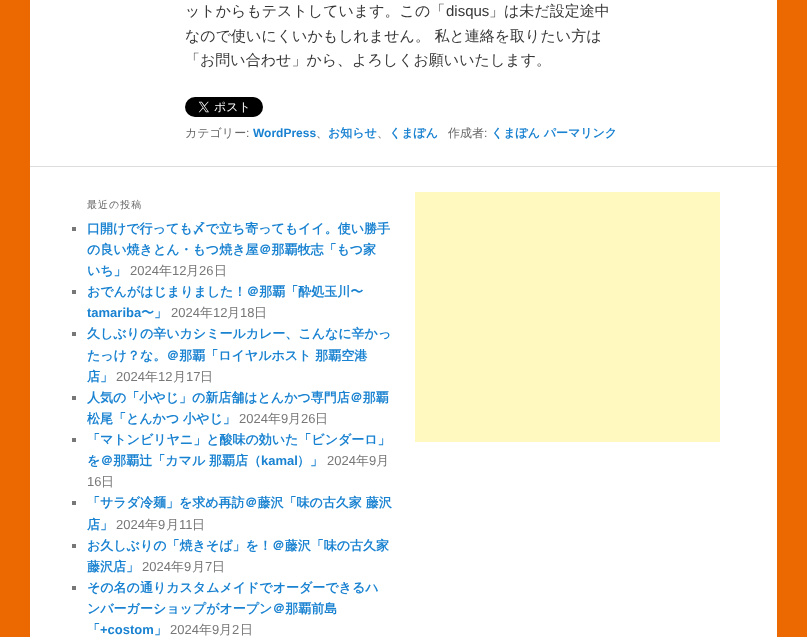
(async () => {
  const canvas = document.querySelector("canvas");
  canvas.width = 807;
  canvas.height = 637;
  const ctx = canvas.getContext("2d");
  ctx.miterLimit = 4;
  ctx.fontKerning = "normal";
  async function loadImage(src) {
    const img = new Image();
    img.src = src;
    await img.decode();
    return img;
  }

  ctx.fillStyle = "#ec6800";
  ctx.fillRect(0, 0, 807, 637);
  ctx.fillStyle = "#ffffff";
  ctx.fillRect(30, 0, 747, 637);
  ctx.drawImage(await loadImage("img/1.png"), 185, 97, 78, 20);
  for (const [x, y, w, h, color] of [
    [30, 166, 747, 1, "#dddddd"],
    [72, 227, 4, 4, "#777777"],
    [72, 290, 4, 4, "#777777"],
    [72, 332, 4, 4, "#777777"],
    [72, 396, 4, 4, "#777777"],
    [72, 438, 4, 4, "#777777"],
    [72, 501, 4, 4, "#777777"],
    [72, 544, 4, 4, "#777777"],
    [72, 586, 4, 4, "#777777"],
    [415, 192, 305, 250, "#fff9c0"],
  ]) {
    ctx.fillStyle = color;
    ctx.fillRect(x, y, w, h);
  }
  ctx.font = "500 15px WenQuanYi Zen Hei";
  ctx.fillStyle = "#373737";
  ctx.fillText("ットからもテストしています。この「", 185, 16);
  ctx.font = "15px Liberation Sans";
  ctx.fillText("disqus", 446, 16);
  ctx.font = "500 15px WenQuanYi Zen Hei";
  for (const [text, x, y] of [
    ["」は未だ設定途中", 489, 16],
    ["なので使いにくいかもしれません。 私と連絡を取りたい方は", 185, 41],
    ["「お問い合わせ」から、よろしくお願いいたします。", 185, 65],
  ]) {
    ctx.fillText(text, x, y);
  }
  ctx.font = "500 12px WenQuanYi Zen Hei";
  ctx.fillStyle = "#666666";
  ctx.fillText("カテゴリー", 185, 137);
  ctx.font = "12px Liberation Sans";
  ctx.fillText(":", 246, 137);
  ctx.font = "bold 12px Liberation Sans";
  ctx.fillStyle = "#1982d1";
  ctx.fillText("WordPress", 253, 137);
  ctx.font = "bold 12px WenQuanYi Zen Hei";
  ctx.fillText("お知らせ", 328, 137);
  ctx.fillText("くまぽん", 389, 137);
  ctx.font = "500 12px WenQuanYi Zen Hei";
  ctx.fillStyle = "#666666";
  ctx.fillText("作成者", 448, 137);
  ctx.font = "12px Liberation Sans";
  ctx.fillText(":", 484, 137);
  ctx.font = "bold 12px WenQuanYi Zen Hei";
  ctx.fillStyle = "#1982d1";
  ctx.fillText("くまぽん パーマリンク", 491, 137);
  ctx.font = "500 12px WenQuanYi Zen Hei";
  ctx.fillStyle = "#666666";
  ctx.fillText("、", 316, 137);
  ctx.fillText("、", 377, 137);
  ctx.letterSpacing = "1px";
  ctx.font = "500 10px WenQuanYi Zen Hei";
  ctx.fillText("最近の投稿", 87, 208);
  ctx.letterSpacing = "0px";
  ctx.font = "bold 13px WenQuanYi Zen Hei";
  ctx.fillStyle = "#1982d1";
  for (const [text, x, y] of [
    ["口開けで行っても〆で立ち寄ってもイイ。使い勝手", 87, 233],
    ["の良い焼きとん・もつ焼き屋＠那覇牧志「もつ家", 87, 254],
    ["いち」", 87, 275],
  ]) {
    ctx.fillText(text, x, y);
  }
  ctx.font = "13px Liberation Sans";
  ctx.fillStyle = "#777777";
  ctx.fillText("2024", 130, 275);
  ctx.font = "500 13px WenQuanYi Zen Hei";
  ctx.fillText("年", 159, 275);
  ctx.font = "13px Liberation Sans";
  ctx.fillText("12", 172, 275);
  ctx.font = "500 13px WenQuanYi Zen Hei";
  ctx.fillText("月", 186, 275);
  ctx.font = "13px Liberation Sans";
  ctx.fillText("26", 199, 275);
  ctx.font = "500 13px WenQuanYi Zen Hei";
  ctx.fillText("日", 214, 275);
  ctx.font = "bold 13px WenQuanYi Zen Hei";
  ctx.fillStyle = "#1982d1";
  ctx.fillText("おでんがはじまりました！＠那覇「酔処玉川〜", 87, 296);
  ctx.font = "bold 13px Liberation Sans";
  ctx.fillText("tamariba", 87, 317);
  ctx.font = "bold 13px WenQuanYi Zen Hei";
  ctx.fillText("〜」", 141, 317);
  ctx.font = "13px Liberation Sans";
  ctx.fillStyle = "#777777";
  ctx.fillText("2024", 171, 317);
  ctx.font = "500 13px WenQuanYi Zen Hei";
  ctx.fillText("年", 200, 317);
  ctx.font = "13px Liberation Sans";
  ctx.fillText("12", 213, 317);
  ctx.font = "500 13px WenQuanYi Zen Hei";
  ctx.fillText("月", 227, 317);
  ctx.font = "13px Liberation Sans";
  ctx.fillText("18", 240, 317);
  ctx.font = "500 13px WenQuanYi Zen Hei";
  ctx.fillText("日", 254, 317);
  ctx.font = "bold 13px WenQuanYi Zen Hei";
  ctx.fillStyle = "#1982d1";
  for (const [text, x, y] of [
    ["久しぶりの辛いカシミールカレー、こんなに辛かっ", 87, 338],
    ["たっけ？な。＠那覇「ロイヤルホスト 那覇空港", 87, 360],
    ["店」", 87, 381],
  ]) {
    ctx.fillText(text, x, y);
  }
  ctx.font = "13px Liberation Sans";
  ctx.fillStyle = "#777777";
  ctx.fillText("2024", 116, 381);
  ctx.font = "500 13px WenQuanYi Zen Hei";
  ctx.fillText("年", 145, 381);
  ctx.font = "13px Liberation Sans";
  ctx.fillText("12", 158, 381);
  ctx.font = "500 13px WenQuanYi Zen Hei";
  ctx.fillText("月", 173, 381);
  ctx.font = "13px Liberation Sans";
  ctx.fillText("17", 186, 381);
  ctx.font = "500 13px WenQuanYi Zen Hei";
  ctx.fillText("日", 200, 381);
  ctx.font = "bold 13px WenQuanYi Zen Hei";
  ctx.fillStyle = "#1982d1";
  ctx.fillText("人気の「小やじ」の新店舗はとんかつ専門店＠那覇", 87, 402);
  ctx.fillText("松尾「とんかつ 小やじ」", 87, 423);
  ctx.font = "13px Liberation Sans";
  ctx.fillStyle = "#777777";
  ctx.fillText("2024", 239, 423);
  ctx.font = "500 13px WenQuanYi Zen Hei";
  ctx.fillText("年", 268, 423);
  ctx.font = "13px Liberation Sans";
  ctx.fillText("9", 281, 423);
  ctx.font = "500 13px WenQuanYi Zen Hei";
  ctx.fillText("月", 288, 423);
  ctx.font = "13px Liberation Sans";
  ctx.fillText("26", 301, 423);
  ctx.font = "500 13px WenQuanYi Zen Hei";
  ctx.fillText("日", 315, 423);
  ctx.font = "bold 13px WenQuanYi Zen Hei";
  ctx.fillStyle = "#1982d1";
  ctx.fillText("「マトンビリヤニ」と酸味の効いた「ビンダーロ」", 87, 444);
  ctx.fillText("を＠那覇辻「カマル 那覇店（", 87, 465);
  ctx.font = "bold 13px Liberation Sans";
  ctx.fillText("kamal", 261, 465);
  ctx.font = "bold 13px WenQuanYi Zen Hei";
  ctx.fillText("）」", 297, 465);
  ctx.font = "13px Liberation Sans";
  ctx.fillStyle = "#777777";
  ctx.fillText("2024", 327, 465);
  ctx.font = "500 13px WenQuanYi Zen Hei";
  ctx.fillText("年", 356, 465);
  ctx.font = "13px Liberation Sans";
  ctx.fillText("9", 369, 465);
  ctx.font = "500 13px WenQuanYi Zen Hei";
  ctx.fillText("月", 376, 465);
  ctx.font = "13px Liberation Sans";
  ctx.fillText("16", 87, 486);
  ctx.font = "500 13px WenQuanYi Zen Hei";
  ctx.fillText("日", 101, 486);
  ctx.font = "bold 13px WenQuanYi Zen Hei";
  ctx.fillStyle = "#1982d1";
  ctx.fillText("「サラダ冷麺」を求め再訪＠藤沢「味の古久家 藤沢", 87, 507);
  ctx.fillText("店」", 87, 529);
  ctx.font = "13px Liberation Sans";
  ctx.fillStyle = "#777777";
  ctx.fillText("2024", 116, 529);
  ctx.font = "500 13px WenQuanYi Zen Hei";
  ctx.fillText("年", 145, 529);
  ctx.font = "13px Liberation Sans";
  ctx.fillText("9", 158, 529);
  ctx.font = "500 13px WenQuanYi Zen Hei";
  ctx.fillText("月", 166, 529);
  ctx.font = "13px Liberation Sans";
  ctx.fillText("11", 179, 529);
  ctx.font = "500 13px WenQuanYi Zen Hei";
  ctx.fillText("日", 192, 529);
  ctx.font = "bold 13px WenQuanYi Zen Hei";
  ctx.fillStyle = "#1982d1";
  ctx.fillText("お久しぶりの「焼きそば」を！＠藤沢「味の古久家", 87, 550);
  ctx.fillText("藤沢店」", 87, 571);
  ctx.font = "13px Liberation Sans";
  ctx.fillStyle = "#777777";
  ctx.fillText("2024", 142, 571);
  ctx.font = "500 13px WenQuanYi Zen Hei";
  ctx.fillText("年", 171, 571);
  ctx.font = "13px Liberation Sans";
  ctx.fillText("9", 184, 571);
  ctx.font = "500 13px WenQuanYi Zen Hei";
  ctx.fillText("月", 192, 571);
  ctx.font = "13px Liberation Sans";
  ctx.fillText("7", 205, 571);
  ctx.font = "500 13px WenQuanYi Zen Hei";
  ctx.fillText("日", 212, 571);
  ctx.font = "bold 13px WenQuanYi Zen Hei";
  ctx.fillStyle = "#1982d1";
  for (const [text, x, y] of [
    ["その名の通りカスタムメイドでオーダーできるハ", 87, 592],
    ["ンバーガーショップがオープン＠那覇前島", 87, 613],
    ["「", 87, 634],
  ]) {
    ctx.fillText(text, x, y);
  }
  ctx.font = "bold 13px Liberation Sans";
  ctx.fillText("+costom", 100, 634);
  ctx.font = "bold 13px WenQuanYi Zen Hei";
  ctx.fillText("」", 154, 634);
  ctx.font = "13px Liberation Sans";
  ctx.fillStyle = "#777777";
  ctx.fillText("2024", 170, 634);
  ctx.font = "500 13px WenQuanYi Zen Hei";
  ctx.fillText("年", 199, 634);
  ctx.font = "13px Liberation Sans";
  ctx.fillText("9", 212, 634);
  ctx.font = "500 13px WenQuanYi Zen Hei";
  ctx.fillText("月", 219, 634);
  ctx.font = "13px Liberation Sans";
  ctx.fillText("2", 232, 634);
  ctx.font = "500 13px WenQuanYi Zen Hei";
  ctx.fillText("日", 240, 634);
})();
